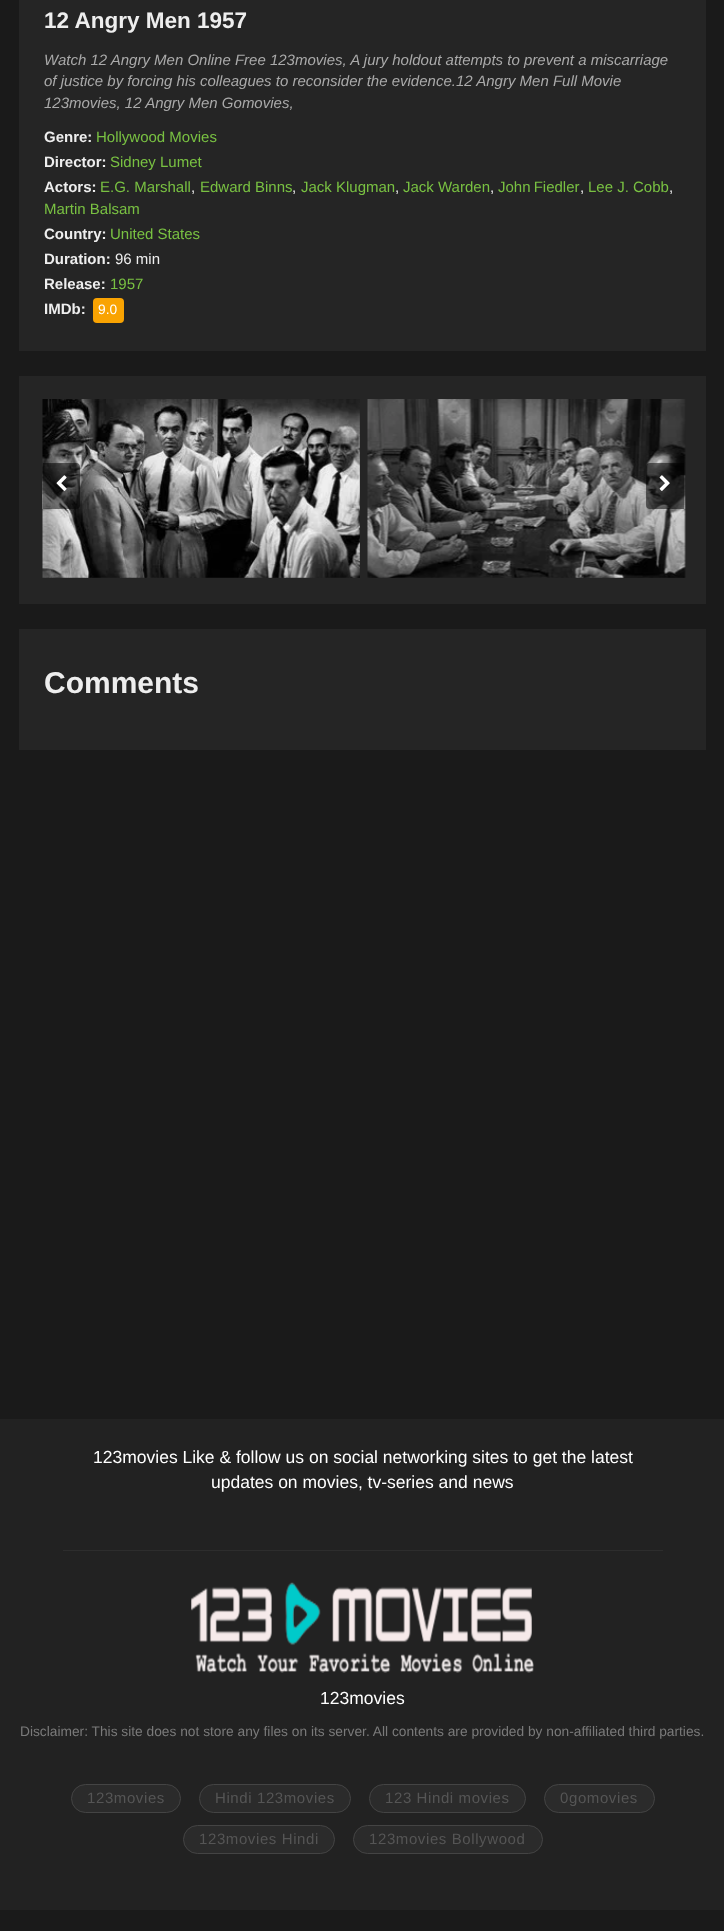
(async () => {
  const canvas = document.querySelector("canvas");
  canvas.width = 724;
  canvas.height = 1931;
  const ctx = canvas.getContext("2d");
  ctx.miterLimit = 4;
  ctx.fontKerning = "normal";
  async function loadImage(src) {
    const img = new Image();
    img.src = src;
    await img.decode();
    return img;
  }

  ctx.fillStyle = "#1a1a1a";
  ctx.fillRect(0, 0, 724, 1931);
  ctx.fillStyle = "#252525";
  ctx.fillRect(19, 0, 687, 351);
  ctx.fillStyle = "#f9a302";
  ctx.beginPath();
  ctx.roundRect(93, 298, 31, 25, 4);
  ctx.fill();
  ctx.fillStyle = "#252525";
  ctx.fillRect(19, 376, 687, 228);
  ctx.drawImage(await loadImage("img/1.png"), 42, 399, 318, 179);
  ctx.drawImage(await loadImage("img/2.png"), 367, 399, 319, 179);
  ctx.fillStyle = "rgba(0, 0, 0, 0.5)";
  ctx.beginPath();
  ctx.roundRect(43, 463, 37, 46, [0, 4, 4, 0]);
  ctx.fill();
  ctx.drawImage(await loadImage("img/3.png"), 56, 475, 11, 16);
  ctx.beginPath();
  ctx.roundRect(646, 463, 38, 46, [4, 0, 0, 4]);
  ctx.fill();
  ctx.drawImage(await loadImage("img/4.png"), 659, 475, 11, 16);
  for (const [x, y, w, h, color] of [
    [19, 629, 687, 121, "#252525"],
    [0, 1419, 724, 491, "#222222"],
    [63, 1550, 600, 1, "#2d2d2d"],
  ]) {
    ctx.fillStyle = color;
    ctx.fillRect(x, y, w, h);
  }
  ctx.drawImage(await loadImage("img/5.png"), 191, 1582, 343, 91);
  ctx.fillStyle = "#2b2b2b";
  ctx.beginPath();
  ctx.roundRect(71.5, 1784.5, 109, 28, 14);
  ctx.fill();
  ctx.strokeStyle = "#444444";
  ctx.stroke();
  ctx.beginPath();
  ctx.roundRect(199.5, 1784.5, 151, 28, 14);
  ctx.fill();
  ctx.stroke();
  ctx.beginPath();
  ctx.roundRect(369.5, 1784.5, 156, 28, 14);
  ctx.fill();
  ctx.stroke();
  ctx.beginPath();
  ctx.roundRect(544.5, 1784.5, 110, 28, 14);
  ctx.fill();
  ctx.stroke();
  ctx.beginPath();
  ctx.roundRect(183.5, 1825.5, 151, 28, 14);
  ctx.fill();
  ctx.stroke();
  ctx.beginPath();
  ctx.roundRect(353.5, 1825.5, 189, 28, 14);
  ctx.fill();
  ctx.stroke();
  ctx.font = "bold 22.5px Liberation Sans";
  ctx.fillStyle = "#eeeeee";
  ctx.fillText("12 Angry Men 1957", 44, 28);
  ctx.font = "italic 15px Liberation Sans";
  ctx.fillStyle = "#aaaaaa";
  for (const [text, x, y] of [
    ["Watch 12 Angry Men Online Free 123movies, A jury holdout attempts to prevent a miscarriage", 44, 65],
    ["of justice by forcing his colleagues to reconsider the evidence.12 Angry Men Full Movie", 44, 86],
    ["123movies, 12 Angry Men Gomovies,", 44, 108],
  ]) {
    ctx.fillText(text, x, y);
  }
  ctx.font = "bold 15px Liberation Sans";
  ctx.fillStyle = "#eeeeee";
  ctx.fillText("Genre:", 44, 142);
  ctx.font = "15px Liberation Sans";
  ctx.fillStyle = "#79c142";
  ctx.fillText("Hollywood Movies", 96, 142);
  ctx.font = "bold 15px Liberation Sans";
  ctx.fillStyle = "#eeeeee";
  ctx.fillText("Director:", 44, 167);
  ctx.font = "15px Liberation Sans";
  ctx.fillStyle = "#79c142";
  ctx.fillText("Sidney Lumet", 110, 167);
  ctx.font = "bold 15px Liberation Sans";
  ctx.fillStyle = "#eeeeee";
  ctx.fillText("Actors:", 44, 192);
  ctx.font = "15px Liberation Sans";
  ctx.fillStyle = "#79c142";
  ctx.fillText("E.G. Marshall", 100, 192);
  ctx.fillStyle = "#eeeeee";
  ctx.fillText(",", 191, 192);
  ctx.fillStyle = "#79c142";
  ctx.fillText("Edward Binns", 200, 192);
  ctx.fillStyle = "#eeeeee";
  ctx.fillText(",", 292, 192);
  ctx.fillStyle = "#79c142";
  ctx.fillText("Jack Klugman", 301, 192);
  ctx.fillStyle = "#eeeeee";
  ctx.fillText(",", 395, 192);
  ctx.fillStyle = "#79c142";
  ctx.fillText("Jack Warden", 403, 192);
  ctx.fillStyle = "#eeeeee";
  ctx.fillText(",", 490, 192);
  ctx.wordSpacing = "-1px";
  ctx.fillStyle = "#79c142";
  ctx.fillText("John Fiedler", 498, 192);
  ctx.wordSpacing = "0px";
  ctx.fillStyle = "#eeeeee";
  ctx.fillText(",", 580, 192);
  ctx.fillStyle = "#79c142";
  ctx.fillText("Lee J. Cobb", 588, 192);
  ctx.fillStyle = "#eeeeee";
  ctx.fillText(",", 669, 192);
  ctx.fillStyle = "#79c142";
  ctx.fillText("Martin Balsam", 44, 214);
  ctx.font = "bold 15px Liberation Sans";
  ctx.fillStyle = "#eeeeee";
  ctx.fillText("Country:", 44, 239);
  ctx.font = "15px Liberation Sans";
  ctx.fillStyle = "#79c142";
  ctx.fillText("United States", 110, 239);
  ctx.font = "bold 15px Liberation Sans";
  ctx.fillStyle = "#eeeeee";
  ctx.fillText("Duration:", 44, 264);
  ctx.font = "15px Liberation Sans";
  ctx.fillText("96 min", 115, 264);
  ctx.font = "bold 15px Liberation Sans";
  ctx.fillText("Release:", 44, 289);
  ctx.font = "15px Liberation Sans";
  ctx.fillStyle = "#79c142";
  ctx.fillText("1957", 110, 289);
  ctx.font = "bold 15px Liberation Sans";
  ctx.fillStyle = "#eeeeee";
  ctx.fillText("IMDb:", 44, 314);
  ctx.font = "13.75px Liberation Sans";
  ctx.fillStyle = "#ffffff";
  ctx.fillText("9.0", 98, 314);
  ctx.font = "bold 30px Liberation Sans";
  ctx.fillStyle = "#eeeeee";
  ctx.fillText("Comments", 44, 693);
  ctx.font = "17.5px Liberation Sans";
  ctx.fillStyle = "#ffffff";
  for (const [text, x, y] of [
    ["123movies Like & follow us on social networking sites to get the latest", 93, 1463],
    ["updates on movies, tv-series and news", 211, 1488],
    ["123movies", 320, 1704],
  ]) {
    ctx.fillText(text, x, y);
  }
  ctx.font = "13.75px Liberation Sans";
  ctx.fillStyle = "#7a7a7a";
  ctx.fillText("Disclaimer: This site does not store any files on its server. All contents are provided by non-affiliated third parties.", 20, 1736);
  ctx.letterSpacing = "0.6px";
  ctx.font = "15px Liberation Sans";
  ctx.fillStyle = "#555555";
  for (const [text, x, y] of [
    ["123movies", 87, 1803],
    ["Hindi 123movies", 215, 1803],
    ["123 Hindi movies", 385, 1803],
    ["0gomovies", 560, 1803],
    ["123movies Hindi", 199, 1844],
    ["123movies Bollywood", 369, 1844],
  ]) {
    ctx.fillText(text, x, y);
  }
})();
